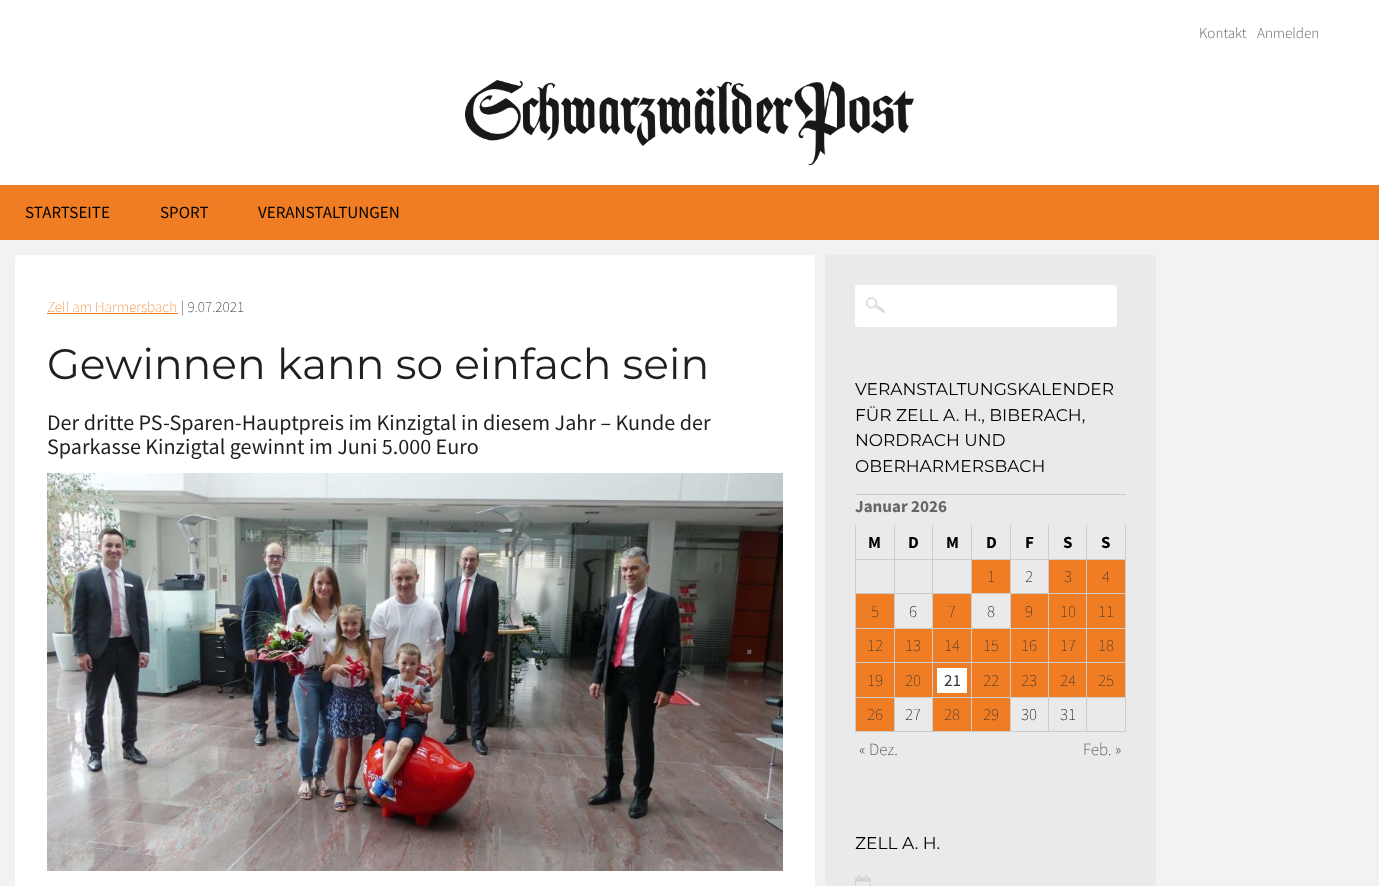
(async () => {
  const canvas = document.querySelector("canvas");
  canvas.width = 1379;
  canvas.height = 886;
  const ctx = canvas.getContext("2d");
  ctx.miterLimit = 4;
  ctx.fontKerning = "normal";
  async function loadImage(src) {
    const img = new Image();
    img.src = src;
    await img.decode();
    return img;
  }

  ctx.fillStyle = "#f2f2f2";
  ctx.fillRect(0, 0, 1379, 886);
  ctx.fillStyle = "#ffffff";
  ctx.fillRect(0, 0, 1379, 185);
  ctx.drawImage(await loadImage("img/1.png"), 465, 80, 449, 85);
  ctx.fillStyle = "#f07d24";
  ctx.fillRect(0, 185, 1379, 55);
  ctx.fillStyle = "#ffffff";
  ctx.beginPath();
  ctx.roundRect(15, 255, 800, 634, 3);
  ctx.fill();
  ctx.fillStyle = "#f07d24";
  ctx.fillRect(47, 313, 131, 1);
  ctx.drawImage(await loadImage("img/2.png"), 47, 473, 736, 398);
  ctx.fillStyle = "#eaeaea";
  ctx.beginPath();
  ctx.roundRect(825, 255, 331, 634, 3);
  ctx.fill();
  ctx.fillStyle = "#ffffff";
  ctx.beginPath();
  ctx.roundRect(855, 285, 262, 42, 3);
  ctx.fill();
  ctx.drawImage(await loadImage("img/3.png"), 865, 297, 20, 16);
  for (const [x, y, w, h, color] of [
    [855, 494, 271, 1, "#cccccc"],
    [894, 525, 1, 207, "#cccccc"],
    [855, 559, 40, 1, "#cccccc"],
    [855, 525, 1, 35, "#cccccc"],
    [932, 525, 1, 207, "#cccccc"],
    [895, 559, 38, 1, "#cccccc"],
    [971, 525, 1, 207, "#cccccc"],
    [933, 559, 39, 1, "#cccccc"],
    [1010, 525, 1, 207, "#cccccc"],
    [972, 559, 39, 1, "#cccccc"],
    [1048, 525, 1, 207, "#cccccc"],
    [1011, 559, 38, 1, "#cccccc"],
    [1086, 525, 1, 207, "#cccccc"],
    [1049, 559, 38, 1, "#cccccc"],
    [1125, 525, 1, 207, "#cccccc"],
    [1087, 559, 39, 1, "#cccccc"],
    [855, 593, 271, 1, "#cccccc"],
    [855, 560, 1, 34, "#cccccc"],
    [972, 560, 38, 33, "#f07d24"],
    [1049, 560, 37, 33, "#f07d24"],
    [1087, 560, 38, 33, "#f07d24"],
    [856, 594, 38, 34, "#f07d24"],
    [855, 628, 271, 1, "#cccccc"],
    [855, 594, 1, 35, "#cccccc"],
    [933, 594, 38, 34, "#f07d24"],
    [1011, 594, 37, 34, "#f07d24"],
    [1049, 594, 37, 34, "#f07d24"],
    [1087, 594, 38, 34, "#f07d24"],
    [856, 629, 38, 33, "#f07d24"],
    [855, 662, 271, 1, "#cccccc"],
    [855, 629, 1, 34, "#cccccc"],
    [895, 629, 37, 33, "#f07d24"],
    [933, 629, 38, 33, "#f07d24"],
    [972, 629, 38, 33, "#f07d24"],
    [1011, 629, 37, 33, "#f07d24"],
    [1049, 629, 37, 33, "#f07d24"],
    [1087, 629, 38, 33, "#f07d24"],
    [856, 663, 38, 34, "#f07d24"],
    [855, 697, 271, 1, "#cccccc"],
    [855, 663, 1, 35, "#cccccc"],
    [895, 663, 37, 34, "#f07d24"],
    [933, 663, 38, 34, "#f07d24"],
    [937, 668, 30, 25, "#ffffff"],
    [972, 663, 38, 34, "#f07d24"],
    [1011, 663, 37, 34, "#f07d24"],
    [1049, 663, 37, 34, "#f07d24"],
    [1087, 663, 38, 34, "#f07d24"],
    [856, 698, 38, 33, "#f07d24"],
    [855, 731, 271, 1, "#cccccc"],
    [855, 698, 1, 34, "#cccccc"],
    [933, 698, 38, 33, "#f07d24"],
    [972, 698, 38, 33, "#f07d24"],
  ]) {
    ctx.fillStyle = color;
    ctx.fillRect(x, y, w, h);
  }
  ctx.drawImage(await loadImage("img/4.png"), 855, 875, 16, 11);
  ctx.font = "300 15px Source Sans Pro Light";
  ctx.fillStyle = "#666666";
  ctx.fillText("Kontakt", 1199, 38);
  ctx.fillText("Anmelden", 1257, 38);
  ctx.font = "17px Source Sans Pro";
  ctx.fillStyle = "#000000";
  for (const [text, x, y] of [
    ["STARTSEITE", 25, 218],
    ["SPORT", 160, 218],
    ["VERANSTALTUNGEN", 258, 218],
  ]) {
    ctx.fillText(text, x, y);
  }
  ctx.font = "200 15.25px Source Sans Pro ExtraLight";
  ctx.fillStyle = "#f07d24";
  ctx.fillText("Zell am Harmersbach", 47, 312);
  ctx.fillStyle = "#1f1f1f";
  ctx.fillText("| 9.07.2021", 181, 312);
  ctx.font = "100 42.5px Montserrat";
  ctx.fillText("Gewinnen kann so einfach sein", 47, 379);
  ctx.font = "22.1px Source Sans Pro";
  ctx.fillText("Der dritte PS-Sparen-Hauptpreis im Kinzigtal in diesem Jahr – Kunde der", 47, 430);
  ctx.fillText("Sparkasse Kinzigtal gewinnt im Juni 5.000 Euro", 47, 454);
  ctx.font = "100 17px Montserrat";
  ctx.fillStyle = "#000000";
  for (const [text, x, y] of [
    ["VERANSTALTUNGSKALENDER", 855, 395],
    ["FÜR ZELL A. H., BIBERACH,", 855, 421],
    ["NORDRACH UND", 855, 446],
    ["OBERHARMERSBACH", 855, 472],
  ]) {
    ctx.fillText(text, x, y);
  }
  ctx.font = "bold 17px Source Sans Pro";
  ctx.fillStyle = "#666666";
  ctx.fillText("Januar 2026", 855, 512);
  ctx.fillStyle = "#000000";
  for (const [text, x, y] of [
    ["M", 868, 548],
    ["D", 908, 548],
    ["M", 946, 548],
    ["D", 986, 548],
    ["F", 1025, 548],
    ["S", 1063, 548],
    ["S", 1101, 548],
  ]) {
    ctx.fillText(text, x, y);
  }
  ctx.font = "200 17px Source Sans Pro ExtraLight";
  ctx.fillStyle = "#333333";
  ctx.fillText("1", 987, 582);
  ctx.fillStyle = "#000000";
  ctx.fillText("2", 1025, 582);
  ctx.fillStyle = "#333333";
  for (const [text, x, y] of [
    ["3", 1064, 582],
    ["4", 1102, 582],
    ["5", 871, 617],
  ]) {
    ctx.fillText(text, x, y);
  }
  ctx.fillStyle = "#000000";
  ctx.fillText("6", 909, 617);
  ctx.fillStyle = "#333333";
  ctx.fillText("7", 948, 617);
  ctx.fillStyle = "#000000";
  ctx.fillText("8", 987, 617);
  ctx.fillStyle = "#333333";
  for (const [text, x, y] of [
    ["9", 1025, 617],
    ["10", 1060, 617],
    ["11", 1098, 617],
    ["12", 867, 651],
    ["13", 905, 651],
    ["14", 944, 651],
    ["15", 983, 651],
    ["16", 1021, 651],
    ["17", 1060, 651],
    ["18", 1098, 651],
    ["19", 867, 686],
    ["20", 905, 686],
  ]) {
    ctx.fillText(text, x, y);
  }
  ctx.font = "17px Source Sans Pro";
  ctx.fillText("21", 944, 686);
  ctx.font = "200 17px Source Sans Pro ExtraLight";
  for (const [text, x, y] of [
    ["22", 983, 686],
    ["23", 1021, 686],
    ["24", 1060, 686],
    ["25", 1098, 686],
    ["26", 867, 720],
  ]) {
    ctx.fillText(text, x, y);
  }
  ctx.fillStyle = "#000000";
  ctx.fillText("27", 905, 720);
  ctx.fillStyle = "#333333";
  ctx.fillText("28", 944, 720);
  ctx.fillText("29", 983, 720);
  ctx.fillStyle = "#000000";
  ctx.fillText("30", 1021, 720);
  ctx.fillText("31", 1060, 720);
  ctx.fillStyle = "#333333";
  ctx.fillText("« Dez.", 859, 755);
  ctx.fillText("Feb. »", 1083, 755);
  ctx.font = "100 17px Montserrat";
  ctx.fillStyle = "#000000";
  ctx.fillText("ZELL A. H.", 855, 849);
})();
